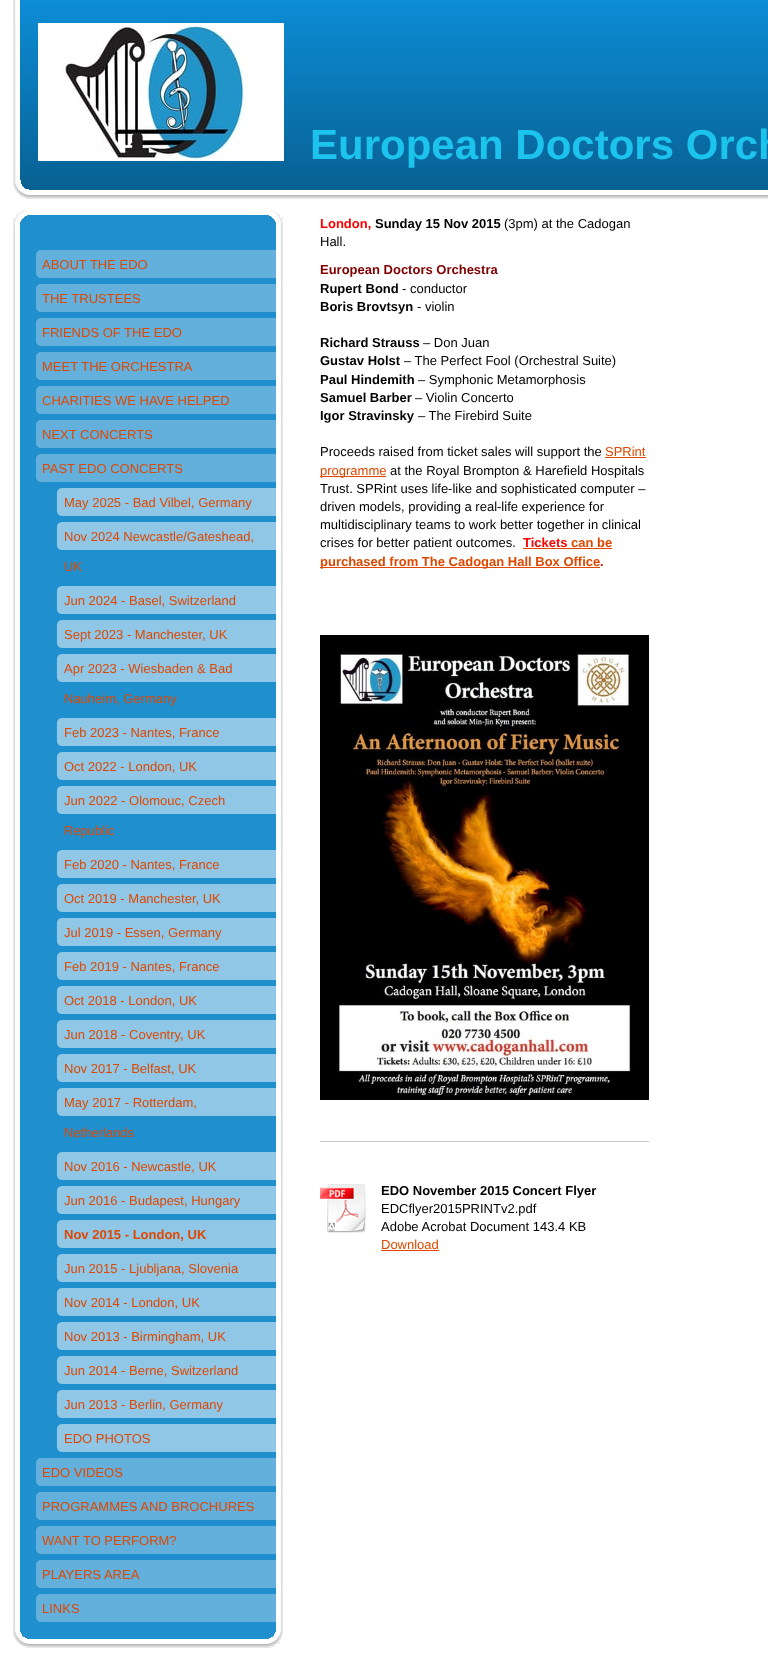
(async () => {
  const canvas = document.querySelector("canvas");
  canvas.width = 768;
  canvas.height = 1666;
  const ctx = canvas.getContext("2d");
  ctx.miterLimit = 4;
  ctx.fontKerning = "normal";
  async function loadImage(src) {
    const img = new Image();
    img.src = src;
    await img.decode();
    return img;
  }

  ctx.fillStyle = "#ffffff";
  ctx.fillRect(0, 0, 768, 1666);
  ctx.drawImage(await loadImage("img/1.png"), 0, 0, 20, 25);
  ctx.fillStyle = "#0e9beb";
  ctx.fillRect(20, 0, 748, 190);
  ctx.drawImage(await loadImage("img/3.png"), 20, 0, 748, 190);
  ctx.drawImage(await loadImage("img/5.png"), 0, 180, 768, 30);
  ctx.drawImage(await loadImage("img/2.png"), 0, 25, 20, 166);
  ctx.fillStyle = "#ffffff";
  ctx.fillRect(38, 23, 246, 138);
  ctx.drawImage(await loadImage("img/4.png"), 62, 23, 184, 138);
  ctx.fillStyle = "#208fce";
  ctx.fillRect(20, 215, 256, 1424);
  ctx.drawImage(await loadImage("img/6.png"), 13, 210, 270, 40);
  ctx.drawImage(await loadImage("img/7.png"), 13, 1628, 270, 20);
  ctx.drawImage(await loadImage("img/8.png"), 13, 250, 270, 1378);
  ctx.drawImage(await loadImage("img/9.png"), 36, 250, 240, 28);
  ctx.drawImage(await loadImage("img/9.png"), 36, 284, 240, 28);
  ctx.drawImage(await loadImage("img/9.png"), 36, 318, 240, 28);
  ctx.drawImage(await loadImage("img/9.png"), 36, 352, 240, 28);
  ctx.drawImage(await loadImage("img/9.png"), 36, 386, 240, 28);
  ctx.drawImage(await loadImage("img/9.png"), 36, 420, 240, 28);
  ctx.drawImage(await loadImage("img/9.png"), 36, 454, 240, 28);
  ctx.drawImage(await loadImage("img/10.png"), 56, 488, 220, 28);
  ctx.drawImage(await loadImage("img/10.png"), 56, 522, 220, 28);
  ctx.drawImage(await loadImage("img/10.png"), 56, 586, 220, 28);
  ctx.drawImage(await loadImage("img/10.png"), 56, 620, 220, 28);
  ctx.drawImage(await loadImage("img/10.png"), 56, 654, 220, 28);
  ctx.drawImage(await loadImage("img/10.png"), 56, 718, 220, 28);
  ctx.drawImage(await loadImage("img/10.png"), 56, 752, 220, 28);
  ctx.drawImage(await loadImage("img/10.png"), 56, 786, 220, 28);
  ctx.drawImage(await loadImage("img/10.png"), 56, 850, 220, 28);
  ctx.drawImage(await loadImage("img/10.png"), 56, 884, 220, 28);
  ctx.drawImage(await loadImage("img/10.png"), 56, 918, 220, 28);
  ctx.drawImage(await loadImage("img/10.png"), 56, 952, 220, 28);
  ctx.drawImage(await loadImage("img/10.png"), 56, 986, 220, 28);
  ctx.drawImage(await loadImage("img/10.png"), 56, 1020, 220, 28);
  ctx.drawImage(await loadImage("img/10.png"), 56, 1054, 220, 28);
  ctx.drawImage(await loadImage("img/10.png"), 56, 1088, 220, 28);
  ctx.drawImage(await loadImage("img/10.png"), 56, 1152, 220, 28);
  ctx.drawImage(await loadImage("img/10.png"), 56, 1186, 220, 28);
  ctx.drawImage(await loadImage("img/10.png"), 56, 1220, 220, 28);
  ctx.drawImage(await loadImage("img/10.png"), 56, 1254, 220, 28);
  ctx.drawImage(await loadImage("img/10.png"), 56, 1288, 220, 28);
  ctx.drawImage(await loadImage("img/10.png"), 56, 1322, 220, 28);
  ctx.drawImage(await loadImage("img/10.png"), 56, 1356, 220, 28);
  ctx.drawImage(await loadImage("img/10.png"), 56, 1390, 220, 28);
  ctx.drawImage(await loadImage("img/10.png"), 56, 1424, 220, 28);
  ctx.drawImage(await loadImage("img/9.png"), 36, 1458, 240, 28);
  ctx.drawImage(await loadImage("img/9.png"), 36, 1492, 240, 28);
  ctx.drawImage(await loadImage("img/9.png"), 36, 1526, 240, 28);
  ctx.drawImage(await loadImage("img/9.png"), 36, 1560, 240, 28);
  ctx.drawImage(await loadImage("img/9.png"), 36, 1594, 240, 28);
  for (const [x, y, w, h, color] of [
    [605, 457, 41, 1, "#df4800"],
    [320, 476, 66, 1, "#df4800"],
    [523, 548, 89, 1, "#df4800"],
    [320, 567, 280, 1, "#df4800"],
  ]) {
    ctx.fillStyle = color;
    ctx.fillRect(x, y, w, h);
  }
  ctx.drawImage(await loadImage("img/11.png"), 320, 635, 329, 465);
  ctx.fillStyle = "#cccccc";
  ctx.fillRect(320, 1141, 329, 1);
  ctx.drawImage(await loadImage("img/12.png"), 320, 1184, 46, 49);
  ctx.fillStyle = "#df4800";
  ctx.fillRect(381, 1250, 58, 1);
  ctx.font = "bold 42px Liberation Sans";
  ctx.fillStyle = "#1cc3ec";
  ctx.fillText("European Doctors Orch", 310, 159);
  ctx.font = "13px Liberation Sans";
  ctx.fillStyle = "#df4800";
  for (const [text, x, y] of [
    ["ABOUT THE EDO", 42, 269],
    ["THE TRUSTEES", 42, 303],
    ["FRIENDS OF THE EDO", 42, 337],
    ["MEET THE ORCHESTRA", 42, 371],
    ["CHARITIES WE HAVE HELPED", 42, 405],
    ["NEXT CONCERTS", 42, 439],
    ["PAST EDO CONCERTS", 42, 473],
    ["May 2025 - Bad Vilbel, Germany", 64, 507],
    ["Nov 2024 Newcastle/Gateshead,", 64, 541],
    ["UK", 64, 571],
    ["Jun 2024 - Basel, Switzerland", 64, 605],
    ["Sept 2023 - Manchester, UK", 64, 639],
    ["Apr 2023 - Wiesbaden & Bad", 64, 673],
    ["Nauheim, Germany", 64, 703],
    ["Feb 2023 - Nantes, France", 64, 737],
    ["Oct 2022 - London, UK", 64, 771],
    ["Jun 2022 - Olomouc, Czech", 64, 805],
    ["Republic", 64, 835],
    ["Feb 2020 - Nantes, France", 64, 869],
    ["Oct 2019 - Manchester, UK", 64, 903],
    ["Jul 2019 - Essen, Germany", 64, 937],
    ["Feb 2019 - Nantes, France", 64, 971],
    ["Oct 2018 - London, UK", 64, 1005],
    ["Jun 2018 - Coventry, UK", 64, 1039],
    ["Nov 2017 - Belfast, UK", 64, 1073],
    ["May 2017 - Rotterdam,", 64, 1107],
    ["Netherlands", 64, 1137],
    ["Nov 2016 - Newcastle, UK", 64, 1171],
    ["Jun 2016 - Budapest, Hungary", 64, 1205],
  ]) {
    ctx.fillText(text, x, y);
  }
  ctx.font = "bold 13px Liberation Sans";
  ctx.fillText("Nov 2015 - London, UK", 64, 1239);
  ctx.font = "13px Liberation Sans";
  for (const [text, x, y] of [
    ["Jun 2015 - Ljubljana, Slovenia", 64, 1273],
    ["Nov 2014 - London, UK", 64, 1307],
    ["Nov 2013 - Birmingham, UK", 64, 1341],
    ["Jun 2014 - Berne, Switzerland", 64, 1375],
    ["Jun 2013 - Berlin, Germany", 64, 1409],
    ["EDO PHOTOS", 64, 1443],
    ["EDO VIDEOS", 42, 1477],
    ["PROGRAMMES AND BROCHURES", 42, 1511],
    ["WANT TO PERFORM?", 42, 1545],
    ["PLAYERS AREA", 42, 1579],
    ["LINKS", 42, 1613],
  ]) {
    ctx.fillText(text, x, y);
  }
  ctx.font = "bold 13px Liberation Sans";
  ctx.fillStyle = "#ff0000";
  ctx.fillText("London,", 320, 228);
  ctx.fillStyle = "#000000";
  ctx.fillText("Sunday 15 Nov 2015", 375, 228);
  ctx.font = "13px Liberation Sans";
  ctx.fillText("(3pm) at the Cadogan", 504, 228);
  ctx.fillText("Hall.", 320, 246);
  ctx.font = "bold 13px Liberation Sans";
  ctx.fillStyle = "#800000";
  ctx.fillText("European Doctors Orchestra", 320, 274);
  ctx.fillStyle = "#000000";
  ctx.fillText("Rupert Bond", 320, 293);
  ctx.font = "13px Liberation Sans";
  ctx.fillText("- conductor", 402, 293);
  ctx.font = "bold 13px Liberation Sans";
  ctx.fillText("Boris Brovtsyn", 320, 311);
  ctx.font = "13px Liberation Sans";
  ctx.fillText("- violin", 417, 311);
  ctx.font = "bold 13px Liberation Sans";
  ctx.fillText("Richard Strauss", 320, 347);
  ctx.font = "13px Liberation Sans";
  ctx.fillText("– Don Juan", 423, 347);
  ctx.font = "bold 13px Liberation Sans";
  ctx.fillText("Gustav Holst", 320, 365);
  ctx.font = "13px Liberation Sans";
  ctx.fillText("– The Perfect Fool (Orchestral Suite)", 404, 365);
  ctx.font = "bold 13px Liberation Sans";
  ctx.fillText("Paul Hindemith", 320, 384);
  ctx.font = "13px Liberation Sans";
  ctx.fillText("– Symphonic Metamorphosis", 418, 384);
  ctx.font = "bold 13px Liberation Sans";
  ctx.fillText("Samuel Barber", 320, 402);
  ctx.font = "13px Liberation Sans";
  ctx.fillText("– Violin Concerto", 415, 402);
  ctx.font = "bold 13px Liberation Sans";
  ctx.fillText("Igor Stravinsky", 320, 420);
  ctx.font = "13px Liberation Sans";
  ctx.fillText("– The Firebird Suite", 418, 420);
  ctx.fillText("Proceeds raised from ticket sales will support the", 320, 456);
  ctx.fillStyle = "#df4800";
  ctx.fillText("SPRint", 605, 456);
  ctx.fillText("programme", 320, 475);
  ctx.fillStyle = "#000000";
  for (const [text, x, y] of [
    ["at the Royal Brompton & Harefield Hospitals", 390, 475],
    ["Trust. SPRint uses life-like and sophisticated computer –", 320, 493],
    ["driven models, providing a real-life experience for", 320, 511],
    ["multidisciplinary teams to work better together in clinical", 320, 529],
    ["crises for better patient outcomes.", 320, 547],
  ]) {
    ctx.fillText(text, x, y);
  }
  ctx.font = "bold 13px Liberation Sans";
  ctx.fillStyle = "#ff0000";
  ctx.fillText("Tickets", 523, 547);
  ctx.fillStyle = "#df4800";
  ctx.fillText("can be", 571, 547);
  ctx.fillText("purchased from The Cadogan Hall Box Office", 320, 566);
  ctx.fillStyle = "#ff0000";
  ctx.fillText(".", 600, 566);
  ctx.fillStyle = "#000000";
  ctx.fillText("EDO November 2015 Concert Flyer", 381, 1195);
  ctx.font = "13px Liberation Sans";
  ctx.fillText("EDCflyer2015PRINTv2.pdf", 381, 1213);
  ctx.fillText("Adobe Acrobat Document 143.4 KB", 381, 1231);
  ctx.fillStyle = "#df4800";
  ctx.fillText("Download", 381, 1249);
})();
